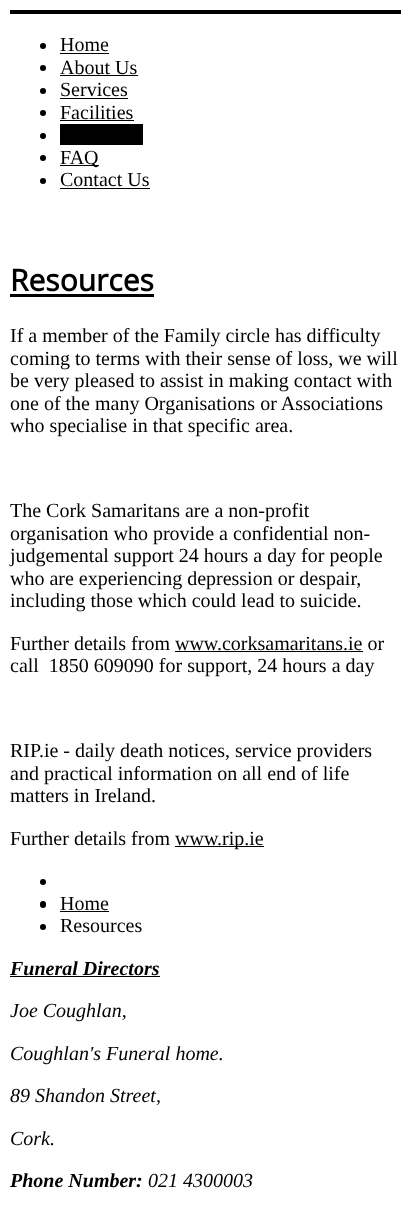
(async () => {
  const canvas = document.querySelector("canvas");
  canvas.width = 411;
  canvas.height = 1218;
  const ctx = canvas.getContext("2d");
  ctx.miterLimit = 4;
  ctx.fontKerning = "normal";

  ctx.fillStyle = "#ffffff";
  ctx.fillRect(0, 0, 411, 1218);
  ctx.fillStyle = "#000000";
  ctx.fillRect(10, 10, 391, 4);
  ctx.beginPath();
  ctx.arc(43, 46, 3, 0, Math.PI * 2);
  ctx.fill();
  ctx.fillRect(60, 53, 49, 1);
  ctx.beginPath();
  ctx.arc(43, 68, 3, 0, Math.PI * 2);
  ctx.fill();
  ctx.fillRect(60, 75, 78, 1);
  ctx.beginPath();
  ctx.arc(43, 91, 3, 0, Math.PI * 2);
  ctx.fill();
  ctx.fillRect(60, 98, 68, 1);
  ctx.beginPath();
  ctx.arc(43, 113, 3, 0, Math.PI * 2);
  ctx.fill();
  ctx.fillRect(60, 120, 74, 1);
  ctx.beginPath();
  ctx.arc(43, 136, 3, 0, Math.PI * 2);
  ctx.fill();
  ctx.fillRect(60, 124, 83, 21);
  ctx.beginPath();
  ctx.arc(43, 158, 3, 0, Math.PI * 2);
  ctx.fill();
  ctx.fillRect(60, 165, 39, 1);
  ctx.beginPath();
  ctx.arc(43, 181, 3, 0, Math.PI * 2);
  ctx.fill();
  for (const [x, y, w, h, color] of [
    [60, 188, 90, 1, "#000000"],
    [10, 294, 144, 3, "#000000"],
    [175, 651, 188, 1, "#000000"],
    [175, 846, 89, 1, "#000000"],
  ]) {
    ctx.fillStyle = color;
    ctx.fillRect(x, y, w, h);
  }
  ctx.beginPath();
  ctx.arc(43, 882, 3, 0, Math.PI * 2);
  ctx.fill();
  ctx.beginPath();
  ctx.roundRect(40, 901, 6, 7, 3);
  ctx.fill();
  ctx.fillRect(60, 911, 49, 1);
  ctx.beginPath();
  ctx.arc(43, 927, 3, 0, Math.PI * 2);
  ctx.fill();
  ctx.fillRect(10, 976, 150, 1);
  ctx.font = "20px Liberation Serif";
  for (const [text, x, y] of [
    ["Home", 60, 51],
    ["About Us", 60, 74],
    ["Services", 60, 96],
    ["Facilities", 60, 119],
    ["FAQ", 60, 164],
    ["Contact Us", 60, 186],
  ]) {
    ctx.fillText(text, x, y);
  }
  ctx.font = "bold 30px Open Sans";
  ctx.fillText("Resources", 10, 291);
  ctx.font = "20px Liberation Serif";
  for (const [text, x, y] of [
    ["If a member of the Family circle has difficulty", 10, 342],
    ["coming to terms with their sense of loss, we will", 10, 365],
    ["be very pleased to assist in making contact with", 10, 387],
    ["one of the many Organisations or Associations", 10, 410],
    ["who specialise in that specific area.", 10, 432],
    ["The Cork Samaritans are a non-profit", 10, 517],
    ["organisation who provide a confidential non-", 10, 540],
    ["judgemental support 24 hours a day for people", 10, 562],
    ["who are experiencing depression or despair,", 10, 585],
    ["including those which could lead to suicide.", 10, 607],
    ["Further details from www.corksamaritans.ie or", 10, 650],
    ["call  1850 609090 for support, 24 hours a day", 10, 672],
    ["RIP.ie - daily death notices, service providers", 10, 757],
    ["and practical information on all end of life", 10, 780],
    ["matters in Ireland.", 10, 802],
    ["Further details from", 10, 845],
    ["www.rip.ie", 175, 845],
    ["Home", 60, 910],
    ["Resources", 60, 932],
  ]) {
    ctx.fillText(text, x, y);
  }
  ctx.font = "italic bold 20px Liberation Serif";
  ctx.fillText("Funeral Directors", 10, 975);
  ctx.font = "italic 20px Liberation Serif";
  for (const [text, x, y] of [
    ["Joe Coughlan,", 10, 1017],
    ["Coughlan's Funeral home.", 10, 1060],
    ["89 Shandon Street,", 10, 1102],
    ["Cork.", 10, 1145],
  ]) {
    ctx.fillText(text, x, y);
  }
  ctx.font = "italic bold 20px Liberation Serif";
  ctx.fillText("Phone Number:", 10, 1187);
  ctx.font = "italic 20px Liberation Serif";
  ctx.fillText("021 4300003", 148, 1187);
})();
